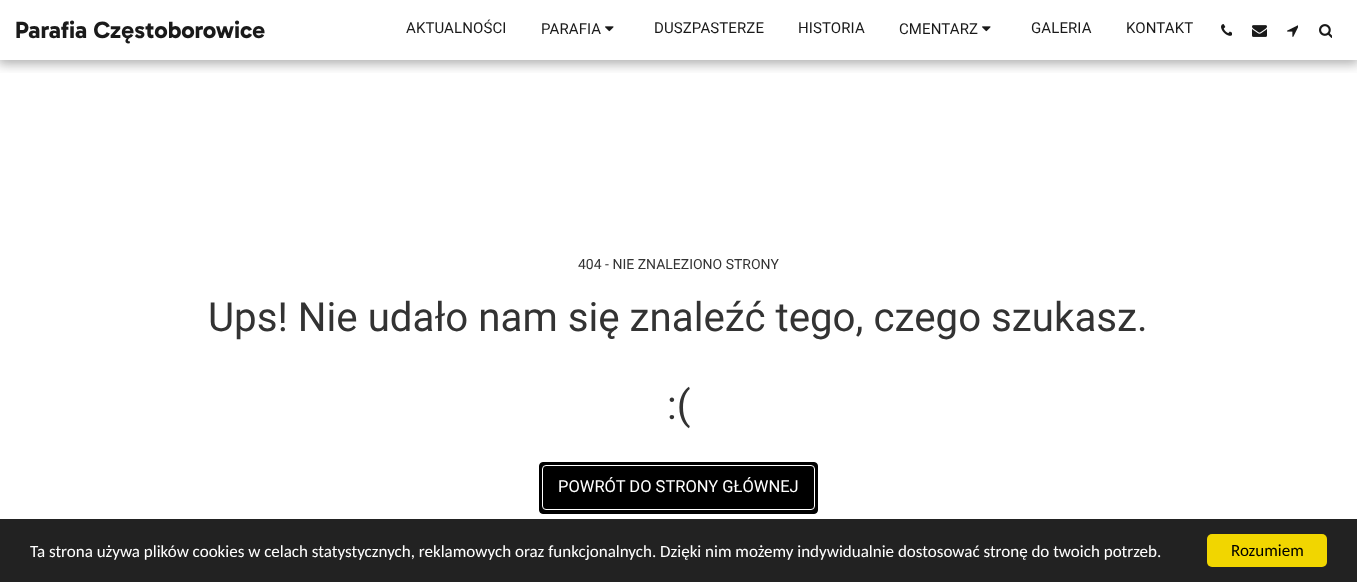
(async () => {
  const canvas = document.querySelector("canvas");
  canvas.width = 1357;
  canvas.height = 582;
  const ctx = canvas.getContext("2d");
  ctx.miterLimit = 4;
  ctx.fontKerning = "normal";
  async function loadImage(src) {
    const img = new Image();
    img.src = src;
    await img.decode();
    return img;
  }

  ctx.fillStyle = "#ffffff";
  ctx.fillRect(0, 0, 1357, 582);
  ctx.save();
  ctx.beginPath();
  ctx.rect(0, 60, 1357, 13);
  ctx.clip();
  ctx.fillStyle = "rgba(26, 26, 26, 0.35)";
  ctx.filter = "blur(6px)";
  ctx.beginPath();
  ctx.rect(-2, 0, 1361, 64);
  ctx.fill();
  ctx.filter = "none";
  ctx.restore();
  ctx.drawImage(await loadImage("img/1.png"), 605, 26, 9, 6);
  ctx.drawImage(await loadImage("img/1.png"), 982, 26, 9, 6);
  ctx.drawImage(await loadImage("img/2.png"), 1221, 24, 11, 12);
  ctx.drawImage(await loadImage("img/3.png"), 1252, 25, 15, 12);
  ctx.drawImage(await loadImage("img/4.png"), 1287, 25, 11, 12);
  ctx.drawImage(await loadImage("img/5.png"), 1319, 24, 13, 14);
  ctx.fillStyle = "#000000";
  ctx.beginPath();
  ctx.roundRect(539.5, 462.5, 278, 51, 3.5);
  ctx.fill();
  ctx.strokeStyle = "#000000";
  ctx.stroke();
  ctx.beginPath();
  ctx.roundRect(542.5, 465.5, 272, 44, 3.5);
  ctx.strokeStyle = "#ffffff";
  ctx.stroke();
  ctx.fillStyle = "#222222";
  ctx.fillRect(0, 519, 1357, 63);
  ctx.fillStyle = "#f1d600";
  ctx.beginPath();
  ctx.roundRect(1207, 534, 120, 33, 5);
  ctx.fill();
  ctx.font = "bold 24px Gabarito";
  ctx.fillStyle = "#1a1a1a";
  ctx.fillText("Parafia Częstoborowice", 15, 38);
  ctx.letterSpacing = "0.1px";
  ctx.font = "15px Roboto";
  for (const [text, x, y] of [
    ["AKTUALNOŚCI", 406, 33],
    ["PARAFIA", 541, 34],
    ["DUSZPASTERZE", 654, 33],
    ["HISTORIA", 798, 33],
    ["CMENTARZ", 899, 34],
    ["GALERIA", 1031, 33],
    ["KONTAKT", 1126, 33],
  ]) {
    ctx.fillText(text, x, y);
  }
  ctx.letterSpacing = "0px";
  ctx.font = "14px Roboto";
  ctx.fillStyle = "#333333";
  ctx.fillText("404 - NIE ZNALEZIONO STRONY", 578, 269);
  ctx.font = "40.25px Roboto";
  ctx.fillText("Ups! Nie udało nam się znaleźć tego, czego szukasz.", 208, 331);
  ctx.fillText(":(", 667, 419);
  ctx.font = "16.5px Roboto";
  ctx.fillStyle = "#ffffff";
  ctx.fillText("POWRÓT DO STRONY GŁÓWNEJ", 558, 492);
  ctx.font = "17px Carlito";
  ctx.fillText("Ta strona używa plików cookies w celach statystycznych, reklamowych oraz funkcjonalnych. Dzięki nim możemy indywidualnie dostosować stronę do twoich potrzeb.", 30, 557);
  ctx.fillStyle = "#000000";
  ctx.fillText("Rozumiem", 1231, 556);
})();
